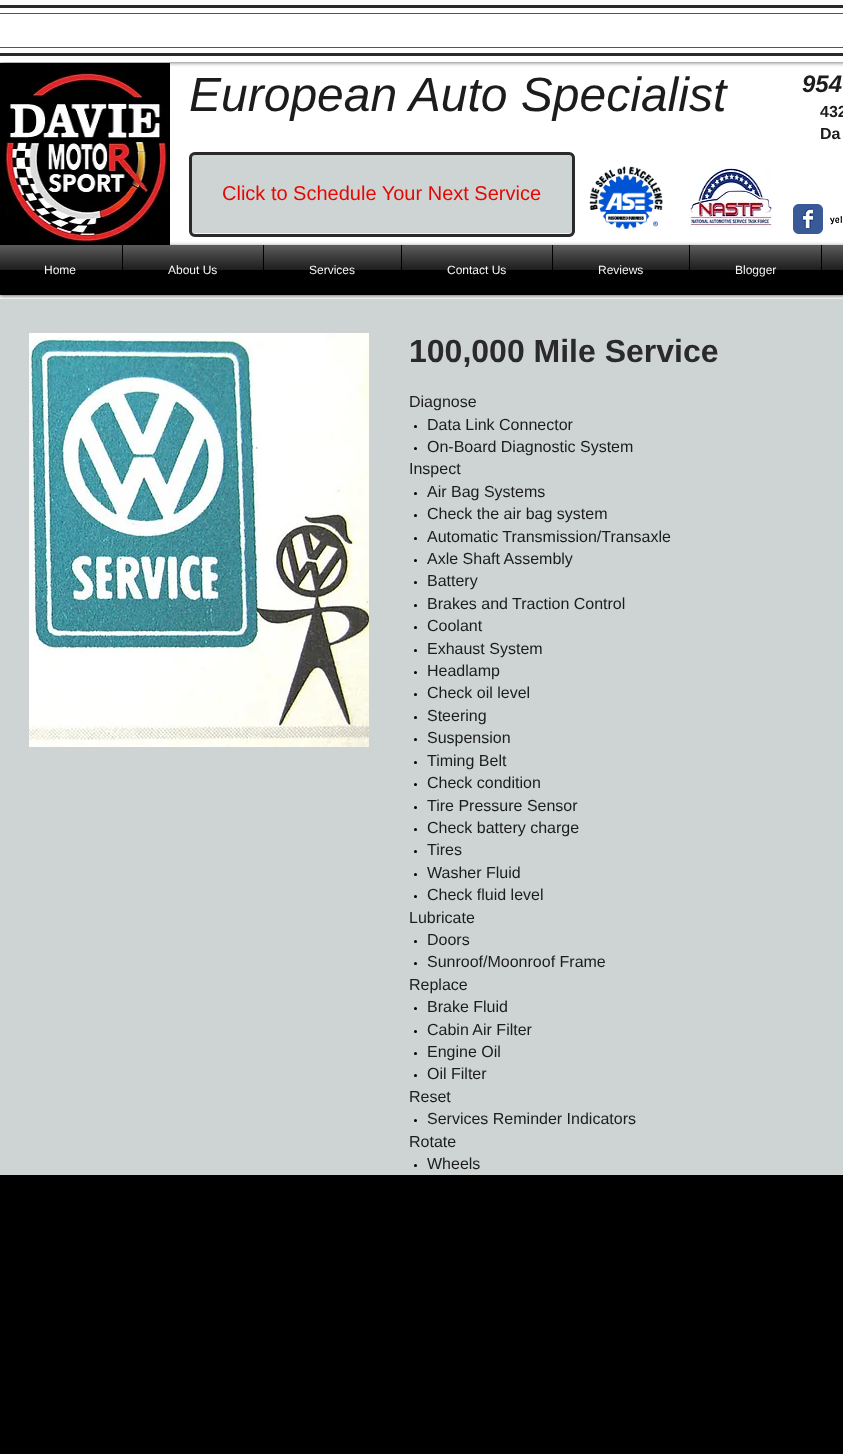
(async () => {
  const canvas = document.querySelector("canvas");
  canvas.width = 843;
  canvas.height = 1454;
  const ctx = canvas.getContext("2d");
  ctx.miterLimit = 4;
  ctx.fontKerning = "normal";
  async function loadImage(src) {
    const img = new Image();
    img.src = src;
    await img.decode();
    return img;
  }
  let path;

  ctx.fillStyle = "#000000";
  ctx.fillRect(0, 0, 843, 1454);
  ctx.fillStyle = "#ffffff";
  ctx.fillRect(0, 0, 843, 299);
  ctx.drawImage(await loadImage("img/1.png"), 0, 63, 170, 183);
  ctx.save();
  ctx.beginPath();
  ctx.rect(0, 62, 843, 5);
  ctx.clip();
  ctx.fillStyle = "rgba(0, 0, 0, 0.7)";
  ctx.filter = "blur(2.5px)";
  ctx.beginPath();
  ctx.rect(0, -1, 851, 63);
  ctx.fill();
  ctx.filter = "none";
  ctx.restore();
  for (const [x, y, w, h, color] of [
    [0, 5, 843, 3, "#2a2a2a"],
    [0, 53, 843, 3, "#2a2a2a"],
    [0, 13, 843, 1, "#545454"],
    [0, 47, 843, 1, "#545454"],
  ]) {
    ctx.fillStyle = color;
    ctx.fillRect(x, y, w, h);
  }
  ctx.fillStyle = "#ced4d4";
  ctx.beginPath();
  ctx.roundRect(189, 152, 386, 85, 6);
  ctx.fill();
  ctx.fillStyle = "#f3f4f4";
  path = new Path2D("M192 230C192 232 193 234 195 234H569L571 233L572 230C572 232 571 233 569 233H195C193 233 192 232 192 230Z");
  ctx.fill(path);
  ctx.beginPath();
  ctx.roundRect(190.5, 153.5, 383, 82, 4.5);
  ctx.strokeStyle = "#2a2a2a";
  ctx.lineWidth = 3;
  ctx.stroke();
  ctx.drawImage(await loadImage("img/2.png"), 589, 166, 74, 63);
  ctx.drawImage(await loadImage("img/3.png"), 690, 168, 82, 60);
  ctx.drawImage(await loadImage("img/4.png"), 793, 204, 30, 30);
  ctx.drawImage(await loadImage("img/5.png"), 830, 216, 12, 9);
  ctx.fillStyle = "rgba(0, 0, 0, 0.6)";
  ctx.filter = "blur(2px)";
  ctx.beginPath();
  ctx.roundRect(-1, 246, 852, 50, 2);
  ctx.fill();
  ctx.filter = "none";
  ctx.drawImage(await loadImage("img/6.png"), 0, 245, 1, 1);
  ctx.fillStyle = "#000000";
  path = new Path2D("M1 245H122V295H1C0 295-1 294-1 293V247C-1 246 0 245 1 245Z");
  ctx.fill(path);
  ctx.fillRect(122, 245, 721, 50);
  ctx.drawImage(await loadImage("img/13.png"), 822, 245, 21, 25);
  ctx.fillStyle = "#ced4d4";
  ctx.fillRect(0, 299, 843, 876);
  ctx.drawImage(await loadImage("img/14.png"), 29, 333, 340, 414);
  ctx.fillStyle = "#000000";
  ctx.beginPath();
  ctx.arc(415.5, 426.5, 1.5, 0, Math.PI * 2);
  ctx.fill();
  ctx.beginPath();
  ctx.arc(415.5, 448.5, 1.5, 0, Math.PI * 2);
  ctx.fill();
  ctx.beginPath();
  ctx.arc(415.5, 493.5, 1.5, 0, Math.PI * 2);
  ctx.fill();
  ctx.beginPath();
  ctx.arc(415.5, 515.5, 1.5, 0, Math.PI * 2);
  ctx.fill();
  ctx.beginPath();
  ctx.arc(415.5, 538.5, 1.5, 0, Math.PI * 2);
  ctx.fill();
  ctx.beginPath();
  ctx.arc(415.5, 560.5, 1.5, 0, Math.PI * 2);
  ctx.fill();
  ctx.beginPath();
  ctx.arc(415.5, 582.5, 1.5, 0, Math.PI * 2);
  ctx.fill();
  ctx.beginPath();
  ctx.arc(415.5, 605.5, 1.5, 0, Math.PI * 2);
  ctx.fill();
  ctx.beginPath();
  ctx.arc(415.5, 627.5, 1.5, 0, Math.PI * 2);
  ctx.fill();
  ctx.beginPath();
  ctx.arc(415.5, 650.5, 1.5, 0, Math.PI * 2);
  ctx.fill();
  ctx.beginPath();
  ctx.arc(415.5, 672.5, 1.5, 0, Math.PI * 2);
  ctx.fill();
  ctx.beginPath();
  ctx.arc(415.5, 694.5, 1.5, 0, Math.PI * 2);
  ctx.fill();
  ctx.beginPath();
  ctx.arc(415.5, 717.5, 1.5, 0, Math.PI * 2);
  ctx.fill();
  ctx.beginPath();
  ctx.arc(415.5, 739.5, 1.5, 0, Math.PI * 2);
  ctx.fill();
  ctx.beginPath();
  ctx.arc(415.5, 762.5, 1.5, 0, Math.PI * 2);
  ctx.fill();
  ctx.beginPath();
  ctx.arc(415.5, 784.5, 1.5, 0, Math.PI * 2);
  ctx.fill();
  ctx.beginPath();
  ctx.arc(415.5, 807.5, 1.5, 0, Math.PI * 2);
  ctx.fill();
  ctx.beginPath();
  ctx.arc(415.5, 829.5, 1.5, 0, Math.PI * 2);
  ctx.fill();
  ctx.beginPath();
  ctx.arc(415.5, 851.5, 1.5, 0, Math.PI * 2);
  ctx.fill();
  ctx.beginPath();
  ctx.arc(415.5, 874.5, 1.5, 0, Math.PI * 2);
  ctx.fill();
  ctx.beginPath();
  ctx.arc(415.5, 896.5, 1.5, 0, Math.PI * 2);
  ctx.fill();
  ctx.beginPath();
  ctx.arc(415.5, 941.5, 1.5, 0, Math.PI * 2);
  ctx.fill();
  ctx.beginPath();
  ctx.arc(415.5, 963.5, 1.5, 0, Math.PI * 2);
  ctx.fill();
  ctx.beginPath();
  ctx.arc(415.5, 1008.5, 1.5, 0, Math.PI * 2);
  ctx.fill();
  ctx.beginPath();
  ctx.arc(415.5, 1031.5, 1.5, 0, Math.PI * 2);
  ctx.fill();
  ctx.beginPath();
  ctx.arc(415.5, 1053.5, 1.5, 0, Math.PI * 2);
  ctx.fill();
  ctx.beginPath();
  ctx.arc(415.5, 1075.5, 1.5, 0, Math.PI * 2);
  ctx.fill();
  ctx.beginPath();
  ctx.arc(415.5, 1120.5, 1.5, 0, Math.PI * 2);
  ctx.fill();
  ctx.beginPath();
  ctx.arc(415.5, 1165.5, 1.5, 0, Math.PI * 2);
  ctx.fill();
  ctx.font = "italic 48px Liberation Sans";
  ctx.fillStyle = "#1c1c1c";
  ctx.fillText("European Auto Specialist", 189, 111);
  ctx.font = "italic bold 24px Liberation Sans";
  ctx.fillText("954", 802, 92);
  ctx.font = "bold 16px Liberation Sans";
  ctx.fillText("432", 820, 117);
  ctx.fillText("Da", 820, 139);
  ctx.font = "20px Liberation Sans";
  ctx.fillStyle = "#e20902";
  ctx.fillText("Click to Schedule Your Next Service", 222, 200);
  ctx.font = "12px Liberation Sans";
  ctx.fillStyle = "#ffffff";
  ctx.fillText("Home", 44, 274);
  ctx.drawImage(await loadImage("img/7.png"), 0, 245, 122, 29);
  ctx.fillText("About Us", 168, 274);
  ctx.drawImage(await loadImage("img/8.png"), 123, 245, 140, 29);
  ctx.fillText("Services", 309, 274);
  ctx.drawImage(await loadImage("img/9.png"), 264, 245, 137, 29);
  ctx.fillText("Contact Us", 447, 274);
  ctx.drawImage(await loadImage("img/10.png"), 402, 245, 150, 29);
  ctx.fillText("Reviews", 598, 274);
  ctx.drawImage(await loadImage("img/11.png"), 553, 245, 136, 29);
  ctx.fillText("Blogger", 735, 274);
  ctx.drawImage(await loadImage("img/12.png"), 690, 245, 131, 32);
  ctx.font = "bold 32px Liberation Sans";
  ctx.fillStyle = "#2a2a2a";
  ctx.fillText("100,000 Mile Service", 409, 362);
  ctx.font = "16px Liberation Sans";
  ctx.fillStyle = "#1c1c1c";
  for (const [text, x, y] of [
    ["Diagnose", 409, 407],
    ["Data Link Connector", 427, 430],
    ["On-Board Diagnostic System", 427, 452],
    ["Inspect", 409, 474],
    ["Air Bag Systems", 427, 497],
    ["Check the air bag system", 427, 519],
    ["Automatic Transmission/Transaxle", 427, 542],
    ["Axle Shaft Assembly", 427, 564],
    ["Battery", 427, 586],
    ["Brakes and Traction Control", 427, 609],
    ["Coolant", 427, 631],
    ["Exhaust System", 427, 654],
    ["Headlamp", 427, 676],
    ["Check oil level", 427, 698],
    ["Steering", 427, 721],
    ["Suspension", 427, 743],
    ["Timing Belt", 427, 766],
    ["Check condition", 427, 788],
    ["Tire Pressure Sensor", 427, 811],
    ["Check battery charge", 427, 833],
    ["Tires", 427, 855],
    ["Washer Fluid", 427, 878],
    ["Check fluid level", 427, 900],
    ["Lubricate", 409, 923],
    ["Doors", 427, 945],
    ["Sunroof/Moonroof Frame", 427, 967],
    ["Replace", 409, 990],
    ["Brake Fluid", 427, 1012],
    ["Cabin Air Filter", 427, 1035],
    ["Engine Oil", 427, 1057],
    ["Oil Filter", 427, 1079],
    ["Reset", 409, 1102],
    ["Services Reminder Indicators", 427, 1124],
    ["Rotate", 409, 1147],
    ["Wheels", 427, 1169],
  ]) {
    ctx.fillText(text, x, y);
  }
})();
